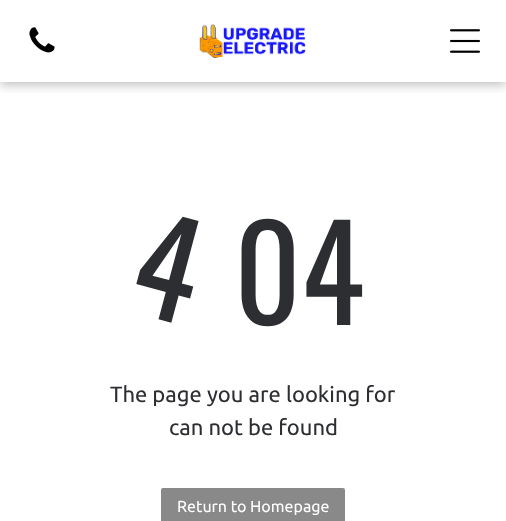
(async () => {
  const canvas = document.querySelector("canvas");
  canvas.width = 506;
  canvas.height = 521;
  const ctx = canvas.getContext("2d");
  ctx.miterLimit = 4;
  ctx.fontKerning = "normal";
  async function loadImage(src) {
    const img = new Image();
    img.src = src;
    await img.decode();
    return img;
  }

  ctx.fillStyle = "#ffffff";
  ctx.fillRect(0, 0, 506, 521);
  ctx.save();
  ctx.beginPath();
  ctx.rect(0, 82, 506, 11);
  ctx.clip();
  ctx.fillStyle = "rgba(0, 0, 0, 0.25)";
  ctx.filter = "blur(5.5px)";
  ctx.beginPath();
  ctx.rect(0, 3, 506, 82);
  ctx.fill();
  ctx.filter = "none";
  ctx.restore();
  ctx.drawImage(await loadImage("img/1.png"), 29, 27, 26, 26);
  ctx.drawImage(await loadImage("img/2.png"), 199, 24, 107, 34);
  ctx.drawImage(await loadImage("img/3.png"), 450, 29, 30, 24);
  ctx.fillStyle = "#898989";
  ctx.beginPath();
  ctx.roundRect(161, 488, 184, 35, 2);
  ctx.fill();
  ctx.font = "130px Oswald";
  ctx.fillStyle = "#2d2e32";
  ctx.save();
  ctx.translate(124, 310);
  ctx.rotate(15 * Math.PI / 180);
  ctx.fillText("4", 0, 0);
  ctx.restore();
  ctx.fillText("04", 234, 325);
  ctx.font = "22px Ubuntu";
  ctx.fillText("The page you are looking for", 110, 402);
  ctx.fillText("can not be found", 169, 435);
  ctx.font = "16px Ubuntu";
  ctx.fillStyle = "#ffffff";
  ctx.fillText("Return to Homepage", 177, 512);
})();
